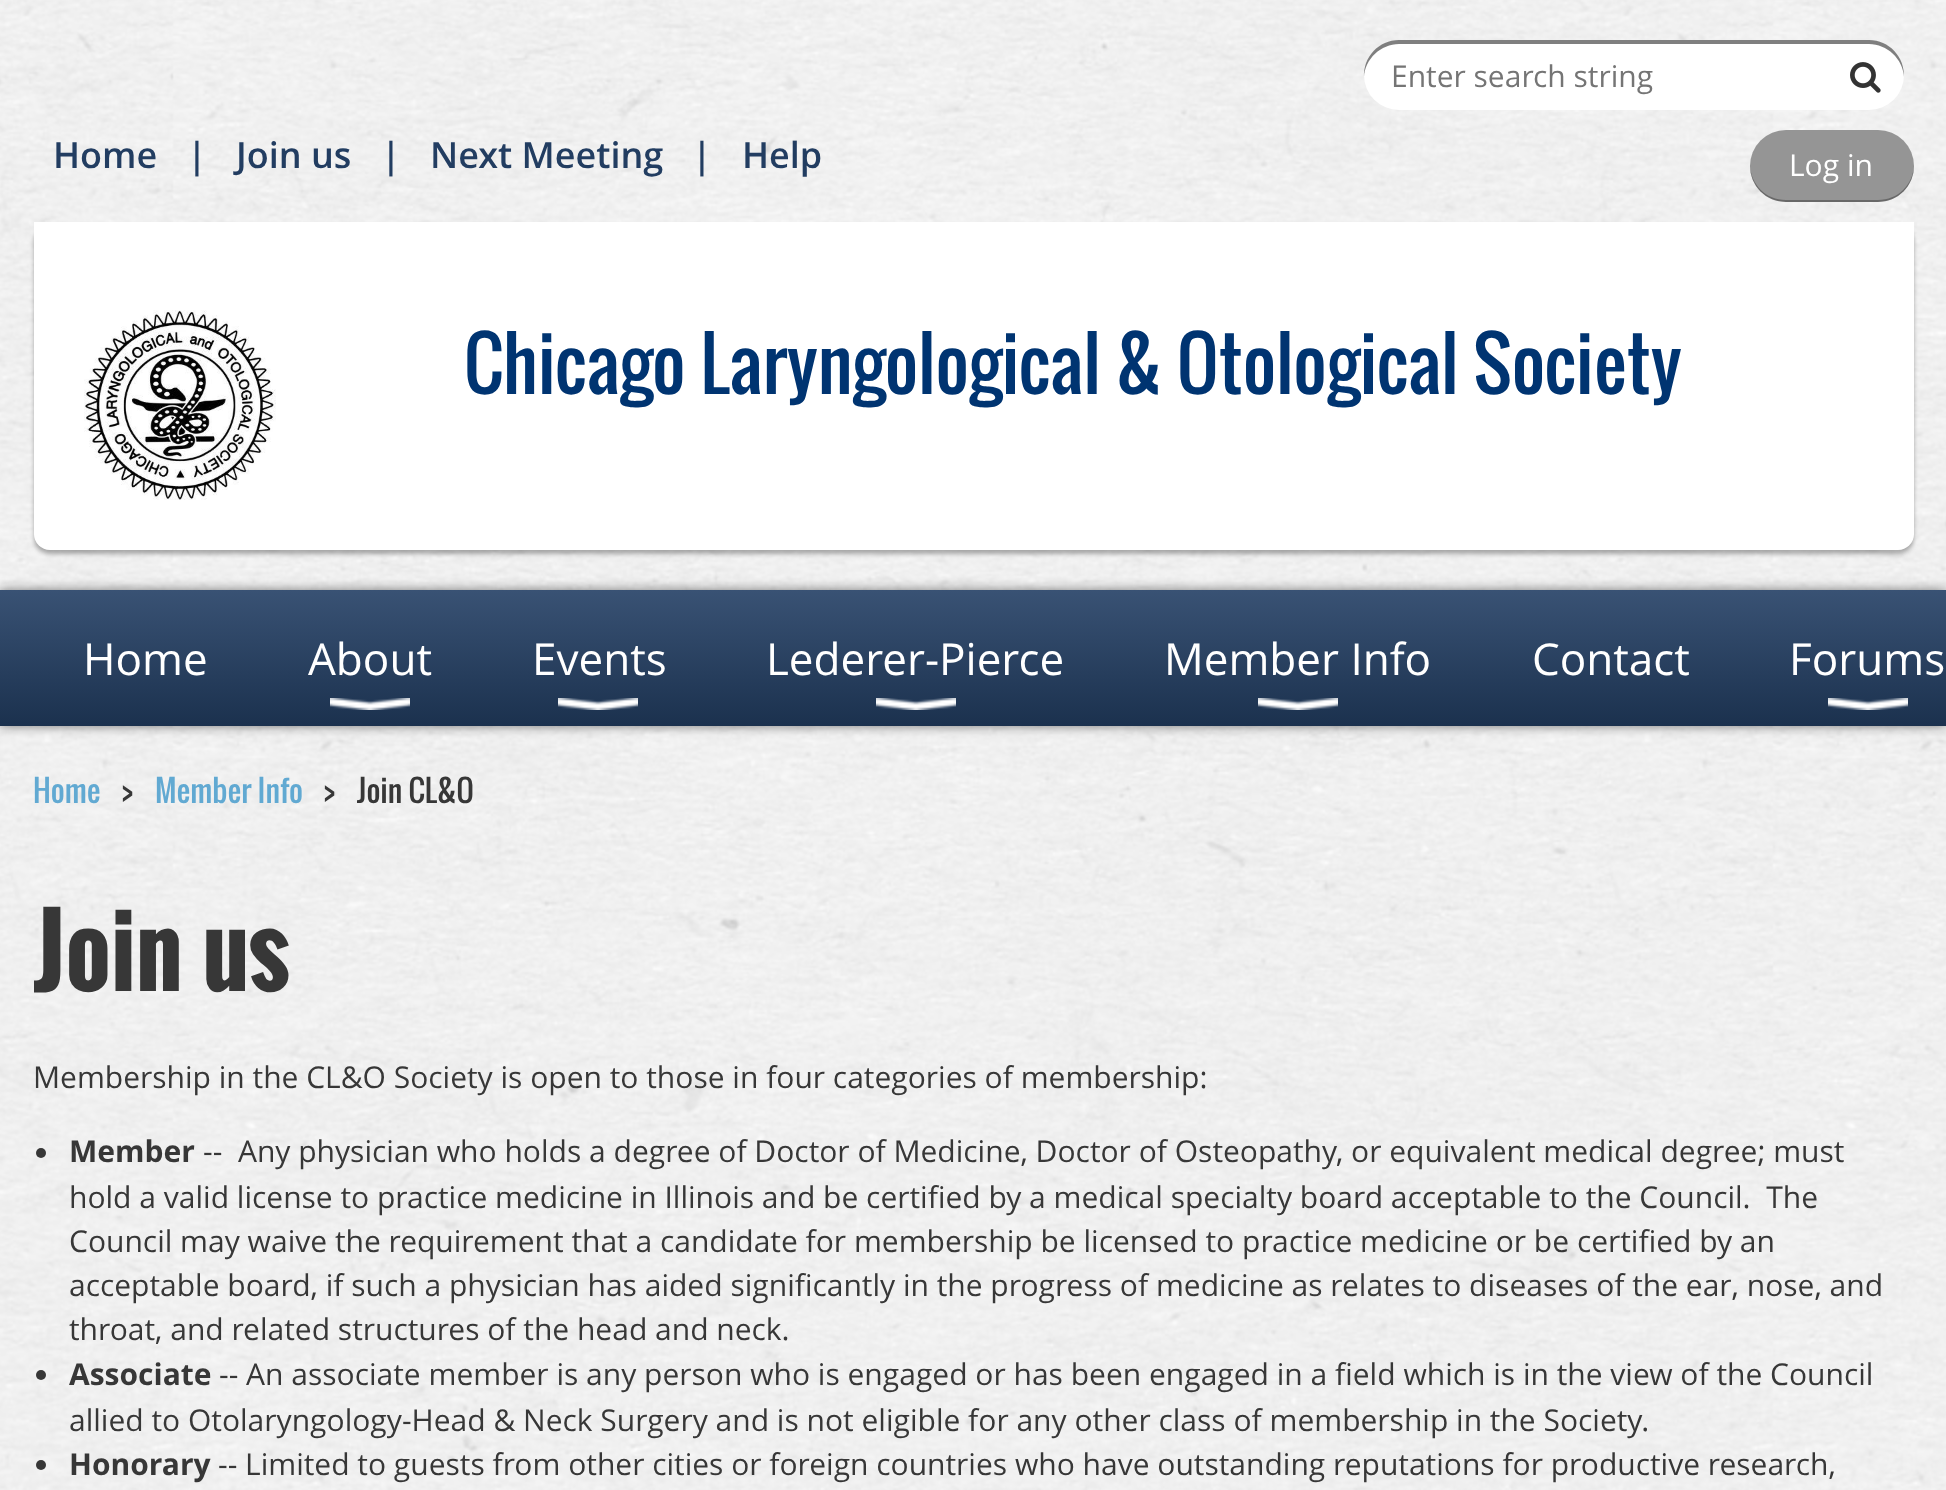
(async () => {
  const canvas = document.querySelector("canvas");
  canvas.width = 1946;
  canvas.height = 1490;
  const ctx = canvas.getContext("2d");
  ctx.miterLimit = 4;
  ctx.fontKerning = "normal";
  async function loadImage(src) {
    const img = new Image();
    img.src = src;
    await img.decode();
    return img;
  }
  let gradient, path;

  ctx.fillStyle = "#ffffff";
  ctx.fillRect(0, 0, 1946, 1490);
  ctx.drawImage(await loadImage("img/1.png"), 0, 0, 1946, 1490);
  ctx.beginPath();
  ctx.roundRect(1364, 40, 540, 70, 35);
  ctx.fill();
  ctx.fillStyle = "rgba(0, 0, 0, 0.5)";
  path = new Path2D("M1399 44H1869C1887 44 1903 59 1904 77C1905 57 1889 40 1869 40H1399C1379 40 1363 57 1364 77C1365 59 1381 44 1399 44Z");
  ctx.fill(path);
  ctx.drawImage(await loadImage("img/2.png"), 1850, 62, 31, 31);
  ctx.fillStyle = "#959595";
  ctx.beginPath();
  ctx.roundRect(1750, 130, 164, 72, 36);
  ctx.fill();
  ctx.fillStyle = "rgba(0, 0, 0, 0.3)";
  path = new Path2D("M1750 165V166C1750 186 1766 202 1786 202H1878C1898 202 1914 186 1914 166V165C1913 185 1898 200 1878 200H1786C1766 200 1751 185 1750 165Z");
  ctx.fill(path);
  ctx.filter = "blur(2px)";
  ctx.beginPath();
  ctx.roundRect(34, 226, 1880, 328, 16);
  ctx.fill();
  ctx.filter = "none";
  ctx.fillStyle = "#ffffff";
  ctx.beginPath();
  ctx.roundRect(34, 222, 1880, 328, [0, 0, 16, 16]);
  ctx.fill();
  ctx.drawImage(await loadImage("img/3.png"), 84, 310, 192, 190);
  ctx.fillStyle = "rgba(0, 0, 0, 0.5)";
  ctx.filter = "blur(6px)";
  ctx.beginPath();
  ctx.rect(0, 590, 1946, 136);
  ctx.fill();
  ctx.filter = "none";
  gradient = ctx.createLinearGradient(973, 590, 973, 726);
  gradient.addColorStop(0, "#395274");
  gradient.addColorStop(1, "#1b314e");
  ctx.fillStyle = gradient;
  ctx.fillRect(0, 590, 1946, 136);
  ctx.drawImage(await loadImage("img/4.png"), 330, 698, 80, 12);
  ctx.drawImage(await loadImage("img/4.png"), 558, 698, 80, 12);
  ctx.drawImage(await loadImage("img/4.png"), 876, 698, 80, 12);
  ctx.drawImage(await loadImage("img/4.png"), 1258, 698, 80, 12);
  ctx.drawImage(await loadImage("img/4.png"), 1828, 698, 80, 12);
  ctx.fillStyle = "#373737";
  ctx.beginPath();
  ctx.arc(41, 1153, 5, 0, Math.PI * 2);
  ctx.fill();
  ctx.beginPath();
  ctx.arc(41, 1375, 5, 0, Math.PI * 2);
  ctx.fill();
  ctx.beginPath();
  ctx.arc(41, 1465, 5, 0, Math.PI * 2);
  ctx.fill();
  ctx.font = "30px Open Sans";
  ctx.fillStyle = "#757575";
  ctx.fillText("Enter search string", 1391, 87);
  ctx.font = "600 36px Open Sans";
  ctx.fillStyle = "#223d61";
  for (const [text, x, y] of [
    ["Home", 53, 168],
    ["|", 187, 168],
    ["Join us", 236, 168],
    ["|", 381, 168],
    ["Next Meeting", 430, 168],
    ["|", 692, 168],
    ["Help", 742, 168],
  ]) {
    ctx.fillText(text, x, y);
  }
  ctx.font = "30px Open Sans";
  ctx.fillStyle = "#ffffff";
  ctx.fillText("Log in", 1789, 176);
  ctx.font = "72px Oswald";
  ctx.fillStyle = "#003471";
  ctx.fillText("Chicago Laryngological & Otological Society", 464, 394);
  ctx.font = "44px Open Sans";
  ctx.fillStyle = "#ffffff";
  for (const [text, x, y] of [
    ["Home", 83, 675],
    ["About", 308, 675],
    ["Events", 532, 675],
    ["Lederer-Pierce", 766, 675],
    ["Member Info", 1164, 675],
    ["Contact", 1532, 675],
    ["Forums", 1789, 675],
  ]) {
    ctx.fillText(text, x, y);
  }
  ctx.font = "30px Oswald";
  ctx.fillStyle = "#61a9d2";
  ctx.fillText("Home", 33, 803);
  ctx.fillStyle = "#373737";
  ctx.fillText(">", 121, 803);
  ctx.fillStyle = "#61a9d2";
  ctx.fillText("Member Info", 155, 803);
  ctx.fillStyle = "#373737";
  ctx.fillText(">", 323, 803);
  ctx.fillText("Join CL&O", 357, 803);
  ctx.save();
  ctx.beginPath();
  ctx.rect(34, 890, 1880, 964);
  ctx.clip();
  ctx.font = "bold 96px Oswald";
  ctx.fillText("Join us", 33, 991);
  ctx.restore();
  ctx.font = "30px Open Sans";
  ctx.fillText("Membership in the CL&O Society is open to those in four categories of membership:", 33, 1088);
  ctx.font = "bold 30px Open Sans";
  ctx.fillText("Member", 69, 1162);
  ctx.font = "30px Open Sans";
  for (const [text, x, y] of [
    ["--  Any physician who holds a degree of Doctor of Medicine, Doctor of Osteopathy, or equivalent medical degree; must", 203, 1162],
    ["hold a valid license to practice medicine in Illinois and be certified by a medical specialty board acceptable to the Council.  The", 69, 1208],
    ["Council may waive the requirement that a candidate for membership be licensed to practice medicine or be certified by an", 69, 1252],
    ["acceptable board, if such a physician has aided significantly in the progress of medicine as relates to diseases of the ear, nose, and", 69, 1296],
    ["throat, and related structures of the head and neck.", 69, 1340],
  ]) {
    ctx.fillText(text, x, y);
  }
  ctx.font = "bold 30px Open Sans";
  ctx.fillText("Associate", 69, 1385);
  ctx.font = "30px Open Sans";
  ctx.fillText("-- An associate member is any person who is engaged or has been engaged in a field which is in the view of the Council", 219, 1385);
  ctx.fillText("allied to Otolaryngology-Head & Neck Surgery and is not eligible for any other class of membership in the Society.", 69, 1431);
  ctx.font = "bold 30px Open Sans";
  ctx.fillText("Honorary", 69, 1475);
  ctx.font = "30px Open Sans";
  ctx.fillText("-- Limited to guests from other cities or foreign countries who have outstanding reputations for productive research,", 218, 1475);
})();
